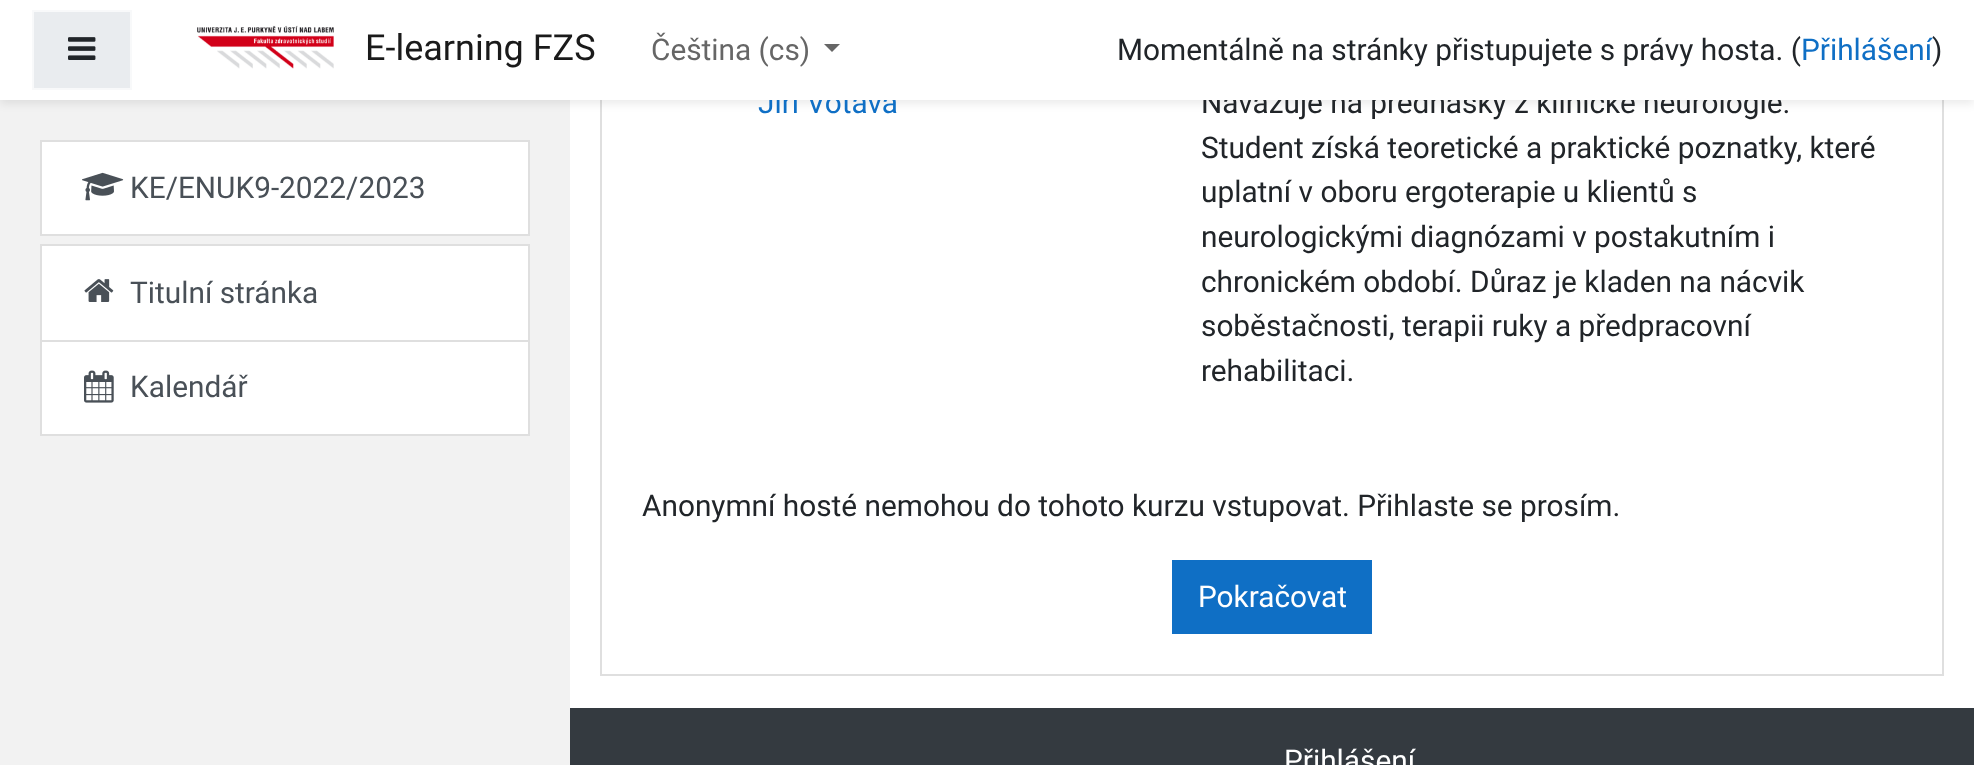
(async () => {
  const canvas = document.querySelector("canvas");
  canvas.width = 1974;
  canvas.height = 765;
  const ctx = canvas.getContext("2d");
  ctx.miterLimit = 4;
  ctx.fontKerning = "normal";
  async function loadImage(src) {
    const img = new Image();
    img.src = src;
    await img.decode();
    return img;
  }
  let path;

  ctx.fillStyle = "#ffffff";
  ctx.fillRect(0, 0, 1974, 765);
  ctx.fillStyle = "#f2f2f2";
  ctx.fillRect(0, 100, 570, 665);
  ctx.strokeStyle = "#dfdfdf";
  ctx.lineWidth = 2;
  ctx.strokeRect(601, -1, 1342, 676);
  ctx.fillStyle = "rgba(0, 0, 0, 0.08)";
  ctx.filter = "blur(4px)";
  ctx.beginPath();
  ctx.rect(0, 4, 1974, 100);
  ctx.fill();
  ctx.filter = "none";
  ctx.fillStyle = "#ffffff";
  ctx.beginPath();
  ctx.rect(41, 141, 488, 94);
  ctx.fill();
  ctx.stroke();
  ctx.drawImage(await loadImage("img/3.png"), 82, 172, 42, 29);
  ctx.beginPath();
  ctx.rect(41, 245, 488, 96);
  ctx.fill();
  ctx.stroke();
  ctx.drawImage(await loadImage("img/4.png"), 84, 279, 30, 23);
  ctx.beginPath();
  ctx.rect(41, 341, 488, 94);
  ctx.fill();
  ctx.stroke();
  ctx.drawImage(await loadImage("img/5.png"), 84, 370, 30, 33);
  ctx.fillStyle = "#0f6fc5";
  ctx.fillRect(1172, 560, 200, 74);
  ctx.fillStyle = "#343a40";
  ctx.fillRect(570, 708, 1404, 57);
  ctx.font = "29.8px Roboto";
  ctx.fillStyle = "#495057";
  for (const [text, x, y] of [
    ["KE/ENUK9-2022/2023", 130, 198],
    ["Titulní stránka", 130, 303],
    ["Kalendář", 130, 397],
  ]) {
    ctx.fillText(text, x, y);
  }
  ctx.fillStyle = "#0f6fc5";
  ctx.fillText("Jiří Votava", 758, 113);
  ctx.fillStyle = "#212529";
  ctx.fillText("Navazuje na přednášky z klinické neurologie.", 1201, 113);
  ctx.fillStyle = "#ffffff";
  ctx.fillRect(0, 0, 1974, 100);
  ctx.fillStyle = "#666666";
  path = new Path2D("M824 44H840L832 52Z");
  ctx.fill(path);
  ctx.fillText("Čeština (cs)", 651, 60);
  ctx.fillStyle = "#0f6fc5";
  ctx.fillText("Přihlášení", 1801, 60);
  ctx.fillStyle = "#212529";
  ctx.fillText(")", 1932, 60);
  ctx.fillText("Momentálně na stránky přistupujete s právy hosta. (", 1117, 60);
  ctx.font = "36px Roboto";
  ctx.fillStyle = "#1a1a1a";
  ctx.fillText("E-learning FZS", 365, 60);
  ctx.drawImage(await loadImage("img/2.png"), 197, 25, 137, 44);
  ctx.fillStyle = "#e9ecef";
  ctx.beginPath();
  ctx.rect(33, 11, 98, 78);
  ctx.fill();
  ctx.strokeStyle = "#f8f9fa";
  ctx.stroke();
  ctx.drawImage(await loadImage("img/1.png"), 68, 37, 28, 23);
  ctx.font = "29.8px Roboto";
  ctx.fillStyle = "#212529";
  for (const [text, x, y] of [
    ["Student získá teoretické a praktické poznatky, které", 1201, 158],
    ["uplatní v oboru ergoterapie u klientů s", 1201, 202],
    ["neurologickými diagnózami v postakutním i", 1201, 247],
    ["chronickém období. Důraz je kladen na nácvik", 1201, 292],
    ["soběstačnosti, terapii ruky a předpracovní", 1201, 336],
    ["rehabilitaci.", 1201, 381],
    ["Anonymní hosté nemohou do tohoto kurzu vstupovat. Přihlaste se prosím.", 642, 516],
  ]) {
    ctx.fillText(text, x, y);
  }
  ctx.fillStyle = "#ffffff";
  ctx.fillText("Pokračovat", 1198, 607);
  ctx.fillText("Přihlášení", 1284, 771);
})();
